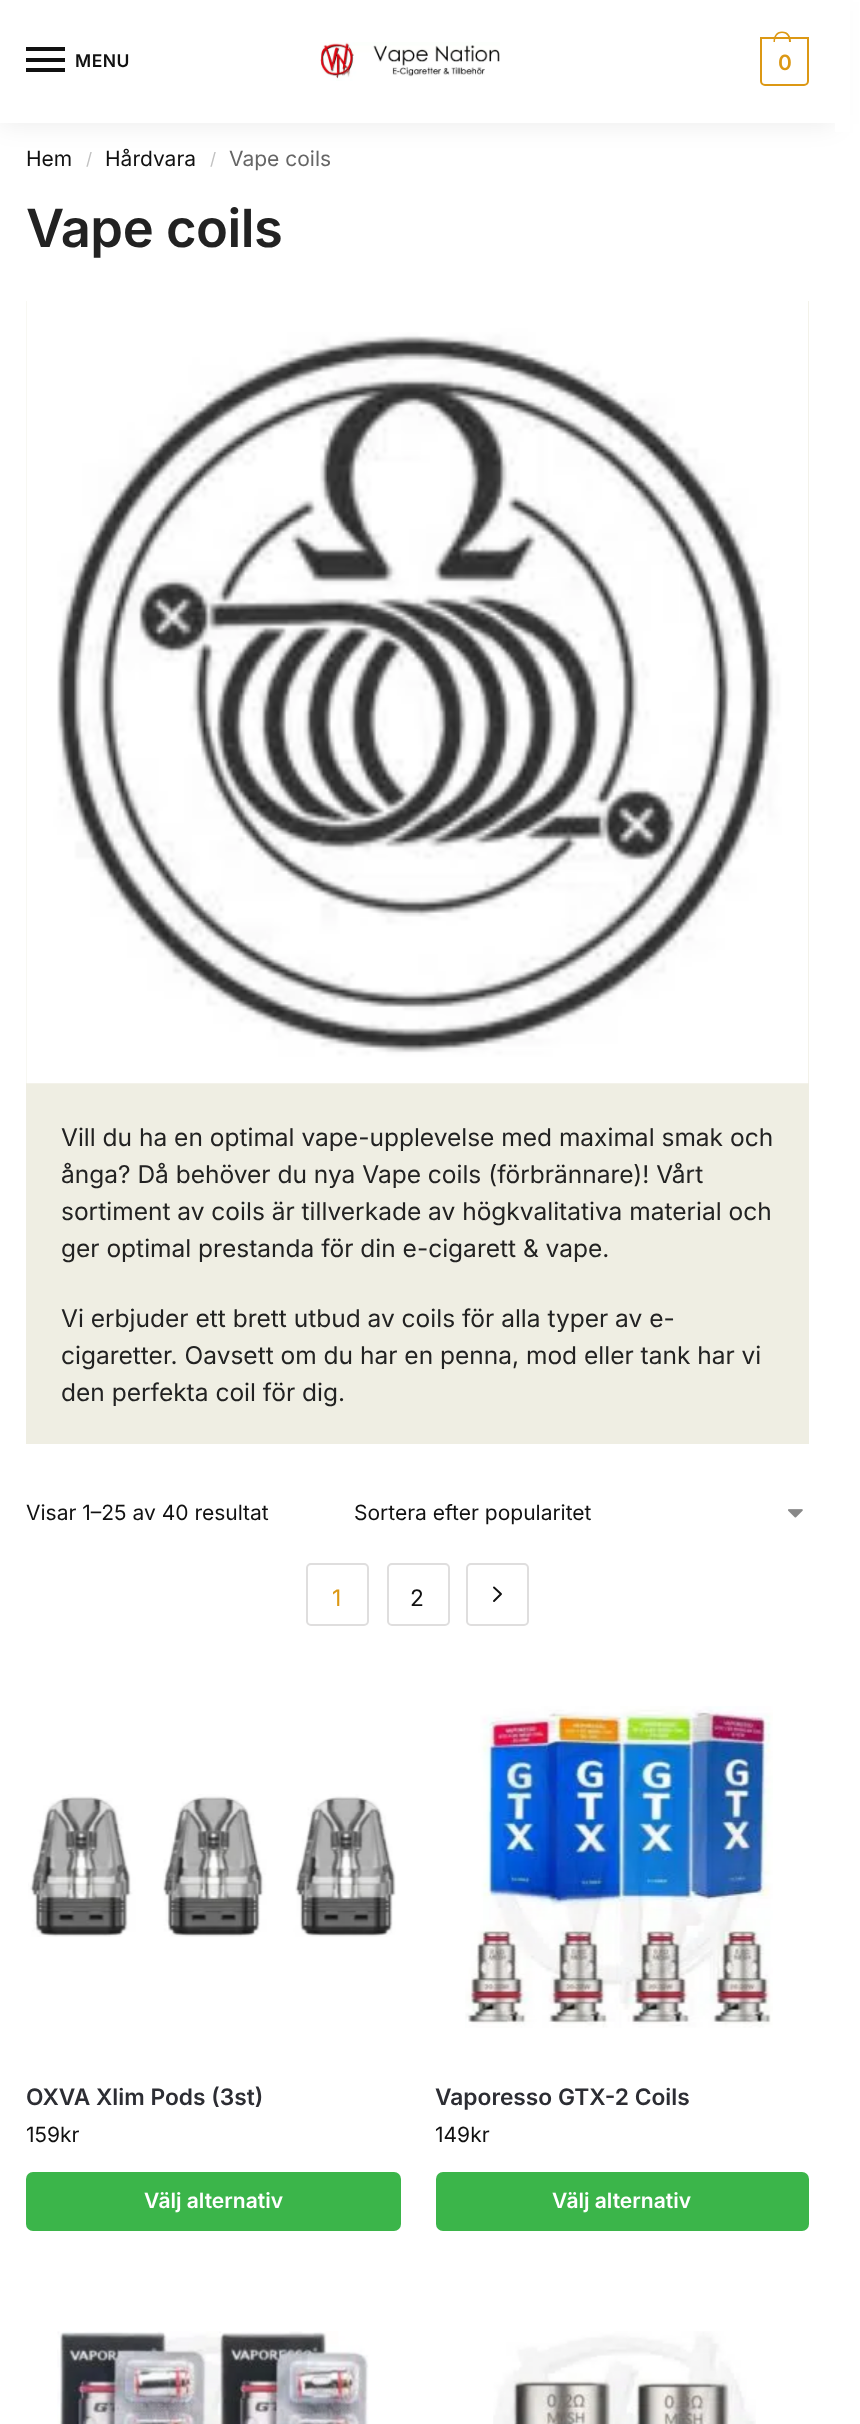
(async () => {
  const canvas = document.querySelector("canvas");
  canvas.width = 860;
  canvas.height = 2424;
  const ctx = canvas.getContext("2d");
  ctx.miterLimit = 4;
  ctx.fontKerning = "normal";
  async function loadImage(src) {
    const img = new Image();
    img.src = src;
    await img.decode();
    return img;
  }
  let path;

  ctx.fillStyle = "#ffffff";
  ctx.fillRect(0, 0, 860, 2424);
  ctx.fillStyle = "rgba(0, 0, 0, 0.08)";
  ctx.filter = "blur(13px)";
  ctx.beginPath();
  ctx.rect(0, 2, 835, 122);
  ctx.fill();
  ctx.filter = "none";
  for (const [x, y, w, h, color] of [
    [0, 0, 835, 123, "#ffffff"],
    [26, 47, 39, 4, "#111111"],
    [26, 58, 39, 4, "#111111"],
    [26, 68, 39, 4, "#111111"],
  ]) {
    ctx.fillStyle = color;
    ctx.fillRect(x, y, w, h);
  }
  ctx.drawImage(await loadImage("img/1.png"), 320, 42, 180, 39);
  ctx.beginPath();
  ctx.roundRect(761, 38, 47, 47, [0, 0, 4, 4]);
  ctx.strokeStyle = "#dc9814";
  ctx.lineWidth = 2;
  ctx.stroke();
  ctx.fillStyle = "#dc9814";
  path = new Path2D("M782 31.5C788.5 31.5 791 36.5 791 42H773.5C773.5 36.5 776 31.5 782 31.5ZM782 33C787.5 33 789 37.5 789 42H775C775 37.5 777 33 782 33Z");
  ctx.fill(path, "evenodd");
  ctx.fillStyle = "#ffffff";
  ctx.fillRect(835, 0, 15, 132);
  ctx.fillStyle = "#efeee3";
  ctx.fillRect(26, 301, 783, 1143);
  ctx.drawImage(await loadImage("img/2.png"), 26, 301, 783, 783);
  ctx.drawImage(await loadImage("img/3.png"), 788, 1509, 15, 9);
  ctx.beginPath();
  ctx.roundRect(307, 1564, 61, 61, 4);
  ctx.strokeStyle = "#dfdede";
  ctx.stroke();
  ctx.beginPath();
  ctx.roundRect(388, 1564, 61, 61, 4);
  ctx.stroke();
  ctx.beginPath();
  ctx.roundRect(467, 1564, 61, 61, 4);
  ctx.stroke();
  path = new Path2D("M494 1587.5L501 1594L494 1601");
  ctx.strokeStyle = "#111111";
  ctx.lineWidth = 1.9;
  ctx.lineCap = "round";
  ctx.lineJoin = "round";
  ctx.stroke(path);
  ctx.drawImage(await loadImage("img/4.png"), 28, 1794, 368, 143);
  ctx.fillStyle = "#3bb54a";
  ctx.beginPath();
  ctx.roundRect(26, 2172, 375, 59, 7);
  ctx.fill();
  ctx.drawImage(await loadImage("img/5.png"), 465, 1706, 308, 322);
  ctx.beginPath();
  ctx.roundRect(436, 2172, 373, 59, 7);
  ctx.fill();
  ctx.drawImage(await loadImage("img/6.png"), 57, 2331, 312, 93);
  ctx.drawImage(await loadImage("img/7.png"), 493, 2331, 263, 93);
  ctx.letterSpacing = "0.5px";
  ctx.font = "600 17.5px Inter";
  ctx.fillStyle = "#111111";
  ctx.fillText("MENU", 75, 67);
  ctx.letterSpacing = "-1px";
  ctx.font = "600 21px Inter";
  ctx.fillStyle = "#dc9814";
  ctx.fillText("0", 778, 70);
  ctx.letterSpacing = "0px";
  ctx.font = "21px Inter";
  ctx.fillStyle = "#111111";
  ctx.fillText("Hem", 26, 166);
  ctx.font = "17px Inter";
  ctx.fillStyle = "#c2c2c2";
  ctx.fillText("/", 86, 165);
  ctx.font = "21px Inter";
  ctx.fillStyle = "#111111";
  ctx.fillText("Hårdvara", 105, 166);
  ctx.font = "17px Inter";
  ctx.fillStyle = "#c2c2c2";
  ctx.fillText("/", 210, 165);
  ctx.font = "21px Inter";
  ctx.fillStyle = "#666666";
  ctx.fillText("Vape coils", 229, 166);
  ctx.letterSpacing = "-0.5px";
  ctx.font = "600 52.5px Inter";
  ctx.fillStyle = "#222222";
  ctx.fillText("Vape coils", 26, 247);
  ctx.letterSpacing = "0px";
  ctx.font = "24.5px Inter";
  for (const [text, x, y] of [
    ["Vill du ha en optimal vape-upplevelse med maximal smak och", 61, 1146],
    ["ånga? Då behöver du nya Vape coils (förbrännare)! Vårt", 61, 1183],
    ["sortiment av coils är tillverkade av högkvalitativa material och", 61, 1220],
    ["ger optimal prestanda för din e-cigarett & vape.", 61, 1257],
    ["Vi erbjuder ett brett utbud av coils för alla typer av e-", 61, 1327],
    ["cigaretter. Oavsett om du har en penna, mod eller tank har vi", 61, 1364],
    ["den perfekta coil för dig.", 61, 1401],
  ]) {
    ctx.fillText(text, x, y);
  }
  ctx.font = "21px Inter";
  ctx.fillStyle = "#111111";
  ctx.fillText("Visar 1–25 av 40 resultat", 26, 1520);
  ctx.fillText("Sortera efter popularitet", 354, 1520);
  ctx.font = "22.75px Inter";
  ctx.fillStyle = "#dc9814";
  ctx.fillText("1", 332, 1606);
  ctx.fillStyle = "#111111";
  ctx.fillText("2", 410, 1606);
  ctx.font = "600 22.75px Inter";
  ctx.fillStyle = "#2c2d33";
  ctx.fillText("OXVA Xlim Pods (3st)", 26, 2105);
  ctx.font = "21px Inter";
  ctx.fillStyle = "#111111";
  ctx.fillText("159kr", 26, 2142);
  ctx.font = "600 21px Inter";
  ctx.fillStyle = "#ffffff";
  ctx.fillText("Välj alternativ", 144, 2208);
  ctx.font = "600 22.75px Inter";
  ctx.fillStyle = "#2c2d33";
  ctx.fillText("Vaporesso GTX-2 Coils", 435, 2105);
  ctx.font = "21px Inter";
  ctx.fillStyle = "#111111";
  ctx.fillText("149kr", 435, 2142);
  ctx.font = "600 21px Inter";
  ctx.fillStyle = "#ffffff";
  ctx.fillText("Välj alternativ", 552, 2208);
})();
